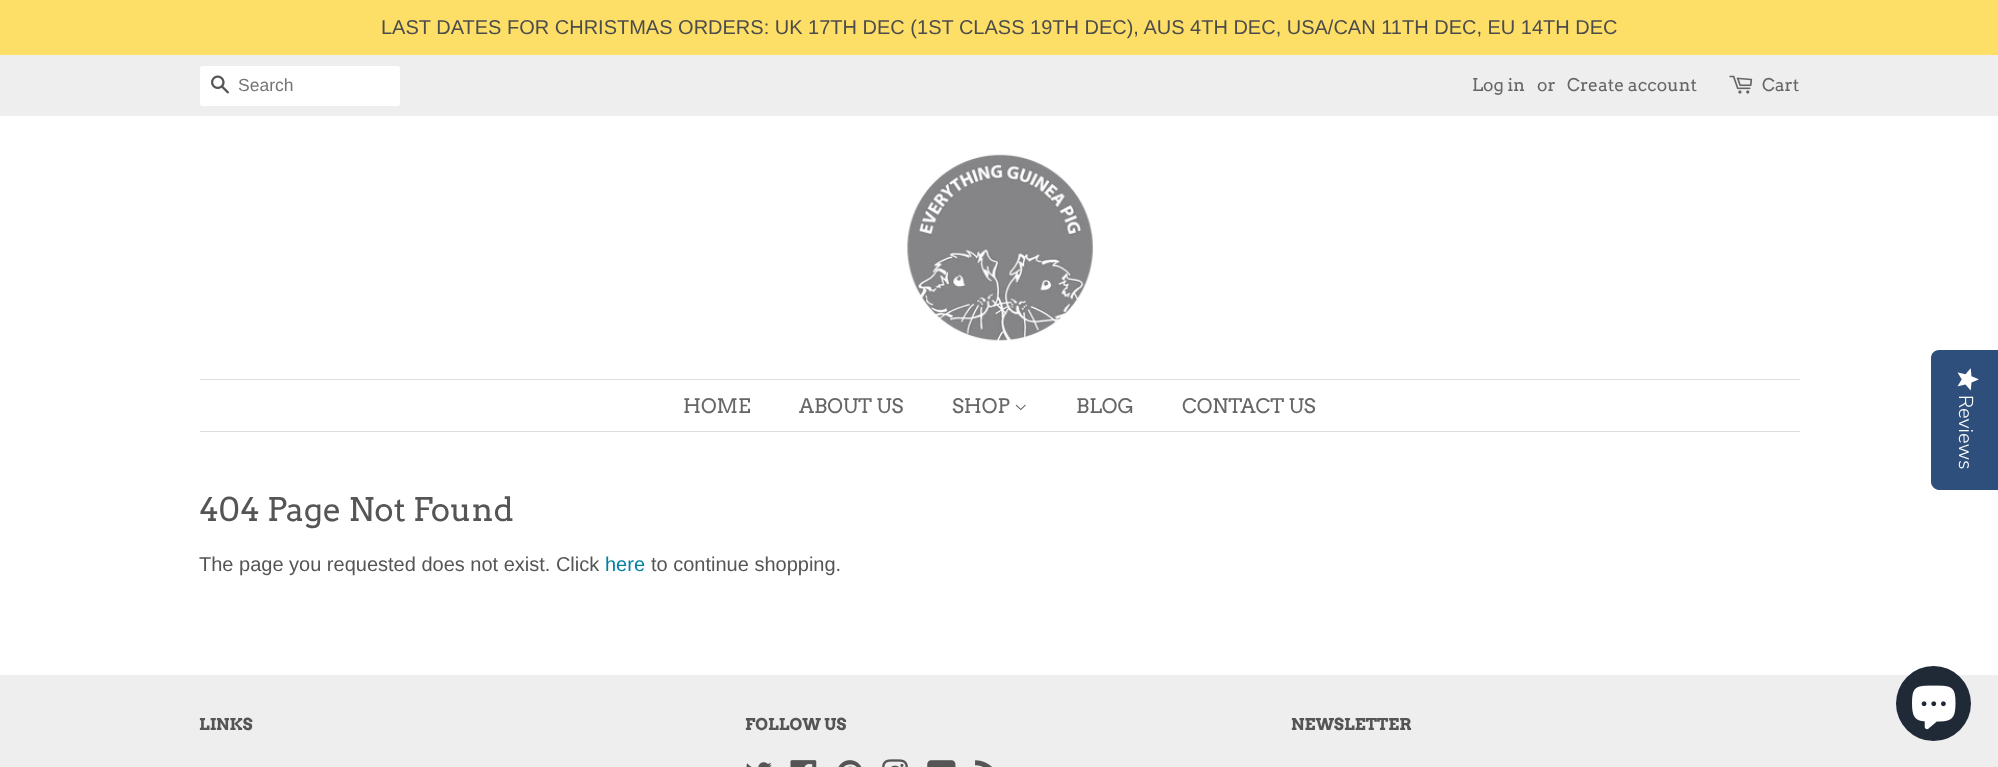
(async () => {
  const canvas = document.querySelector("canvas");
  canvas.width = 1998;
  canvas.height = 767;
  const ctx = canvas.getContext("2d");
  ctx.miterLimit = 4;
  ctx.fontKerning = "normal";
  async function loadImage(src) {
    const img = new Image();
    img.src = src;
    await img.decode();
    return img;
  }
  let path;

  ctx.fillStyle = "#ffffff";
  ctx.fillRect(0, 0, 1998, 767);
  ctx.fillStyle = "#fddf67";
  ctx.fillRect(0, 0, 1998, 55);
  ctx.fillStyle = "#eeeeee";
  ctx.fillRect(0, 55, 1998, 61);
  ctx.fillStyle = "#ffffff";
  ctx.beginPath();
  ctx.roundRect(200, 66, 200, 40, 2.5);
  ctx.fill();
  ctx.drawImage(await loadImage("img/1.png"), 211, 75, 18, 19);
  ctx.drawImage(await loadImage("img/2.png"), 1729, 75, 24, 19);
  ctx.drawImage(await loadImage("img/3.png"), 907, 154, 187, 187);
  ctx.fillStyle = "#dddddd";
  ctx.fillRect(200, 379, 1600, 1);
  ctx.fillRect(200, 431, 1600, 1);
  ctx.drawImage(await loadImage("img/4.png"), 1015, 404, 11, 7);
  ctx.fillStyle = "#2e4f7c";
  path = new Path2D("M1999 350V490H1939C1935 490 1931 486 1931 482V358C1931 353 1935 350 1939 350Z");
  ctx.fill(path);
  ctx.drawImage(await loadImage("img/5.png"), 1957, 368, 22, 23);
  ctx.fillStyle = "#eeeeee";
  ctx.fillRect(0, 675, 1998, 92);
  ctx.drawImage(await loadImage("img/6.png"), 746, 762, 26, 5);
  ctx.drawImage(await loadImage("img/7.png"), 790, 760, 27, 7);
  ctx.drawImage(await loadImage("img/8.png"), 838, 760, 24, 7);
  ctx.drawImage(await loadImage("img/9.png"), 882, 759, 26, 8);
  ctx.drawImage(await loadImage("img/10.png"), 927, 760, 29, 7);
  ctx.drawImage(await loadImage("img/11.png"), 975, 760, 17, 7);
  ctx.fillStyle = "#202a36";
  ctx.beginPath();
  ctx.arc(1933.5, 703.5, 37.5, 0, Math.PI * 2);
  ctx.fill();
  ctx.drawImage(await loadImage("img/12.png"), 1912, 685, 44, 45);
  ctx.font = "20px Liberation Sans";
  ctx.fillStyle = "#4c4c4c";
  ctx.fillText("LAST DATES FOR CHRISTMAS ORDERS: UK 17TH DEC (1ST CLASS 19TH DEC), AUS 4TH DEC, USA/CAN 11TH DEC, EU 14TH DEC", 381, 34);
  ctx.font = "17.5px Liberation Sans";
  ctx.fillStyle = "#757575";
  ctx.fillText("Search", 238, 91);
  ctx.font = "17.5px Arvo";
  ctx.fillStyle = "#666666";
  for (const [text, x, y] of [
    ["Log in", 1472, 91],
    ["or", 1537, 91],
    ["Create account", 1567, 91],
    ["Cart", 1762, 91],
  ]) {
    ctx.fillText(text, x, y);
  }
  ctx.font = "20px Arvo";
  for (const [text, x, y] of [
    ["HOME", 683, 413],
    ["ABOUT US", 799, 413],
    ["SHOP", 952, 413],
    ["BLOG", 1076, 413],
    ["CONTACT US", 1182, 413],
  ]) {
    ctx.fillText(text, x, y);
  }
  ctx.font = "300 20px Nunito Sans";
  ctx.fillStyle = "#ffffff";
  ctx.save();
  ctx.translate(1959, 395);
  ctx.rotate(90 * Math.PI / 180);
  ctx.fillText("Reviews", 0, 0);
  ctx.restore();
  ctx.font = "32.5px Arvo";
  ctx.fillStyle = "#555555";
  ctx.fillText("404 Page Not Found", 199, 521);
  ctx.font = "20px Liberation Sans";
  ctx.fillText("The page you requested does not exist. Click", 199, 571);
  ctx.fillStyle = "#0081a3";
  ctx.fillText("here", 605, 571);
  ctx.fillStyle = "#555555";
  ctx.fillText("to continue shopping.", 651, 571);
  ctx.font = "bold 16.25px Arvo";
  for (const [text, x, y] of [
    ["LINKS", 199, 730],
    ["FOLLOW US", 745, 730],
    ["NEWSLETTER", 1291, 730],
  ]) {
    ctx.fillText(text, x, y);
  }
})();
